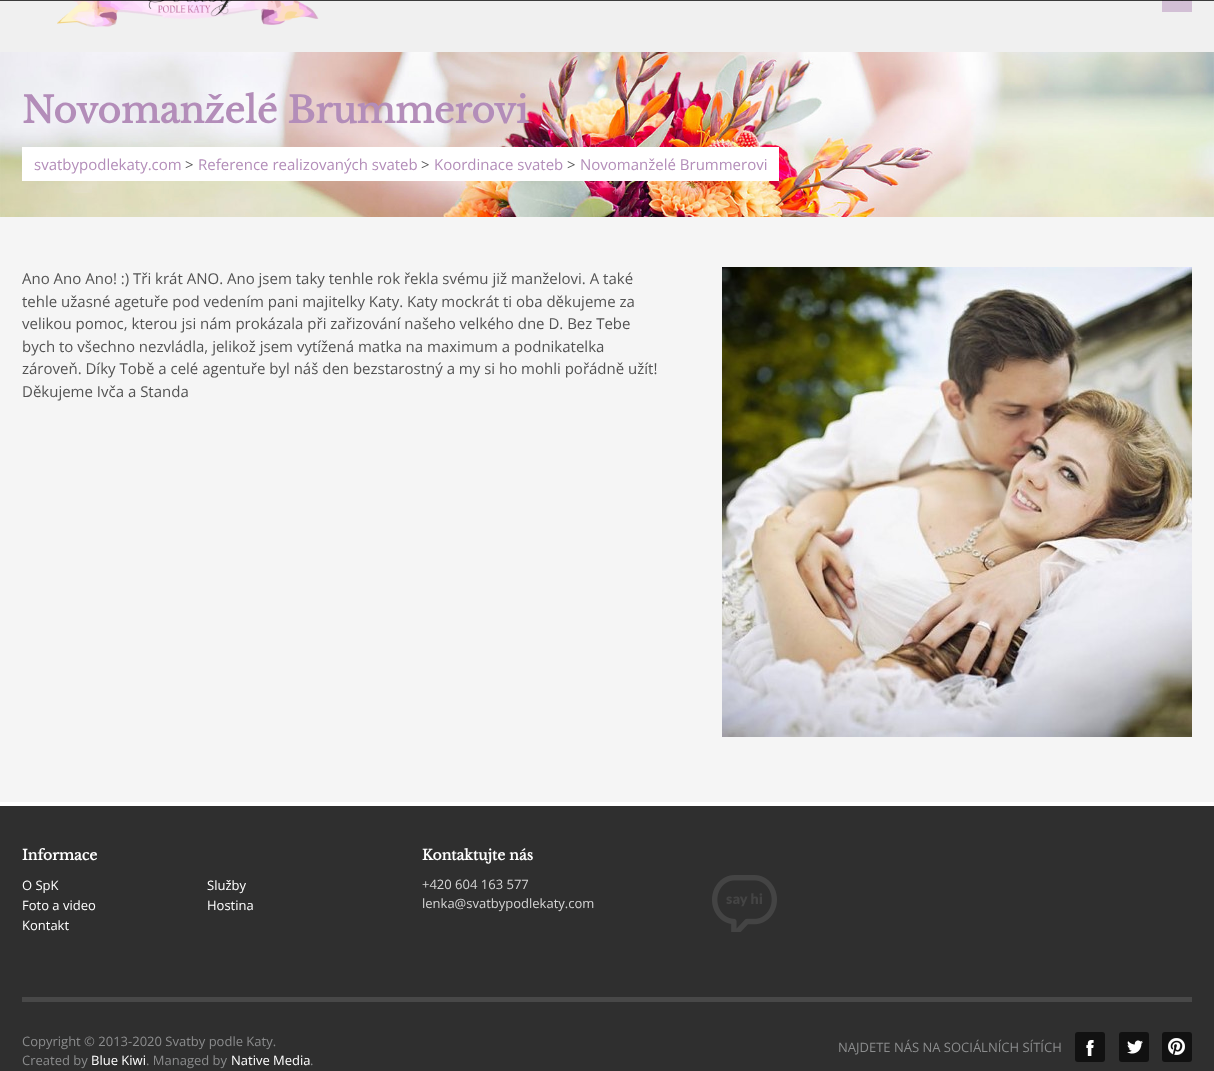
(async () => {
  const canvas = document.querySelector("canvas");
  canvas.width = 1214;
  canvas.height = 1071;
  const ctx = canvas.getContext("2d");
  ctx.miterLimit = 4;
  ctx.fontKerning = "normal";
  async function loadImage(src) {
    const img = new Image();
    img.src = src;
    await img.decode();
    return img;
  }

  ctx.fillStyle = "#f5f5f5";
  ctx.fillRect(0, 0, 1214, 1071);
  ctx.fillStyle = "#f0f0f0";
  ctx.fillRect(0, 0, 1214, 52);
  ctx.drawImage(await loadImage("img/1.png"), 57, 0, 262, 27);
  ctx.fillStyle = "#d2bfd5";
  ctx.fillRect(1162, 0, 30, 12);
  ctx.drawImage(await loadImage("img/2.png"), 1181, 0, 2, 1);
  ctx.fillStyle = "rgba(0, 0, 0, 0.75)";
  ctx.fillRect(0, 0, 1214, 1);
  ctx.drawImage(await loadImage("img/3.png"), 0, 52, 1214, 165);
  ctx.fillStyle = "#ffffff";
  ctx.fillRect(22, 147, 757, 34);
  ctx.drawImage(await loadImage("img/4.png"), 722, 267, 470, 470);
  ctx.fillStyle = "#2f2f2f";
  ctx.fillRect(0, 806, 1214, 265);
  ctx.fillStyle = "#ffffff";
  ctx.fillRect(0, 802, 1214, 4);
  ctx.drawImage(await loadImage("img/5.png"), 712, 875, 65, 57);
  ctx.fillStyle = "#484848";
  ctx.fillRect(22, 997, 1170, 5);
  ctx.fillStyle = "#111111";
  ctx.beginPath();
  ctx.roundRect(1075, 1032, 30, 30, 3);
  ctx.fill();
  ctx.drawImage(await loadImage("img/6.png"), 1086, 1040, 8, 16);
  ctx.beginPath();
  ctx.roundRect(1119, 1032, 30, 30, 3);
  ctx.fill();
  ctx.drawImage(await loadImage("img/7.png"), 1127, 1040, 16, 14);
  ctx.beginPath();
  ctx.roundRect(1162, 1032, 30, 30, 3);
  ctx.fill();
  ctx.drawImage(await loadImage("img/8.png"), 1168, 1038, 17, 17);
  ctx.font = "bold 36px Libre Baskerville";
  ctx.fillStyle = "#b38db9";
  ctx.fillText("Novomanželé Brummerovi", 22, 123);
  ctx.font = "15px Open Sans";
  ctx.fillText("svatbypodlekaty.com", 34, 170);
  ctx.fillStyle = "#535353";
  ctx.fillText(">", 185, 170);
  ctx.fillStyle = "#b38db9";
  ctx.fillText("Reference realizovaných svateb", 198, 170);
  ctx.fillStyle = "#535353";
  ctx.fillText(">", 421, 170);
  ctx.fillStyle = "#b38db9";
  ctx.fillText("Koordinace svateb", 434, 170);
  ctx.fillStyle = "#535353";
  ctx.fillText(">", 567, 170);
  ctx.fillStyle = "#b38db9";
  ctx.fillText("Novomanželé Brummerovi", 580, 170);
  ctx.fillStyle = "#535353";
  for (const [text, x, y] of [
    ["Ano Ano Ano! :) Tři krát ANO. Ano jsem taky tenhle rok řekla svému již manželovi. A také", 22, 284],
    ["tehle užasné agetuře pod vedením pani majitelky Katy. Katy mockrát ti oba děkujeme za", 22, 307],
    ["velikou pomoc, kterou jsi nám prokázala při zařizování našeho velkého dne D. Bez Tebe", 22, 329],
    ["bych to všechno nezvládla, jelikož jsem vytížená matka na maximum a podnikatelka", 22, 352],
    ["zároveň. Díky Tobě a celé agentuře byl náš den bezstarostný a my si ho mohli pořádně užít!", 22, 374],
    ["Děkujeme Ivča a Standa", 22, 397],
  ]) {
    ctx.fillText(text, x, y);
  }
  ctx.font = "bold 14px Libre Baskerville";
  ctx.fillStyle = "#ffffff";
  ctx.fillText("Informace", 22, 860);
  ctx.font = "13px Open Sans";
  for (const [text, x, y] of [
    ["O SpK", 22, 890],
    ["Služby", 207, 890],
    ["Foto a video", 22, 910],
    ["Hostina", 207, 910],
    ["Kontakt", 22, 930],
  ]) {
    ctx.fillText(text, x, y);
  }
  ctx.font = "bold 14px Libre Baskerville";
  ctx.fillText("Kontaktujte nás", 422, 860);
  ctx.font = "13px Open Sans";
  ctx.fillStyle = "#d5d5d5";
  ctx.fillText("+420 604 163 577", 422, 889);
  ctx.fillText("lenka@svatbypodlekaty.com", 422, 908);
  ctx.fillStyle = "#8b8c8d";
  ctx.fillText("Copyright © 2013-2020 Svatby podle Katy.", 22, 1046);
  ctx.fillText("Created by", 22, 1065);
  ctx.fillStyle = "#ffffff";
  ctx.fillText("Blue Kiwi", 91, 1065);
  ctx.fillStyle = "#8b8c8d";
  ctx.fillText(". Managed by", 146, 1065);
  ctx.fillStyle = "#ffffff";
  ctx.fillText("Native Media", 231, 1065);
  ctx.fillStyle = "#8b8c8d";
  ctx.fillText(".", 310, 1065);
  ctx.fillText("NAJDETE NÁS NA SOCIÁLNÍCH SÍTÍCH", 838, 1052);
})();
